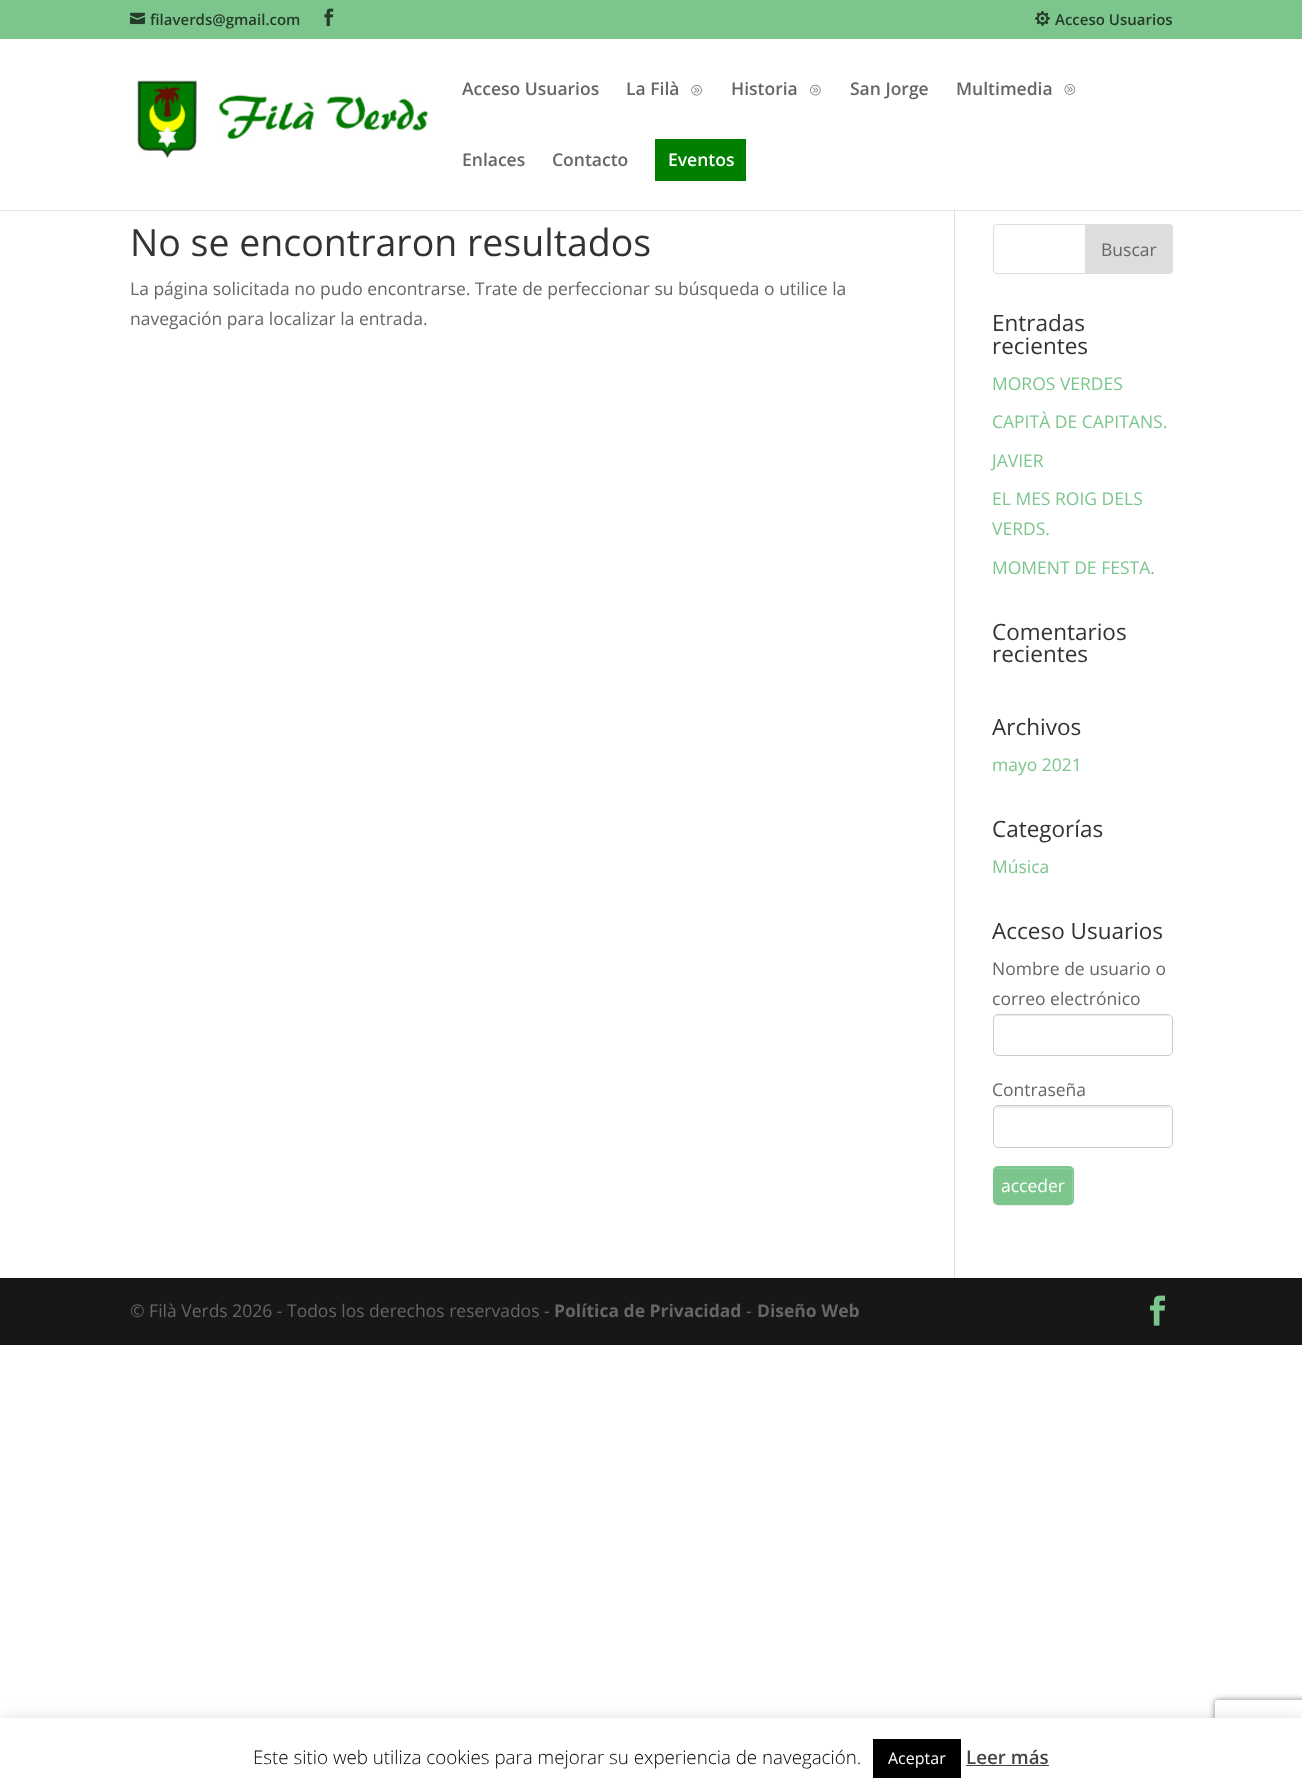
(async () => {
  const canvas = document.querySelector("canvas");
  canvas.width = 1302;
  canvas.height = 1792;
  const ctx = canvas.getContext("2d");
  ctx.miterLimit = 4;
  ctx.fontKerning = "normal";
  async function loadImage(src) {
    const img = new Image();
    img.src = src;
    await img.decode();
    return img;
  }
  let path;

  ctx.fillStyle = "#ffffff";
  ctx.fillRect(0, 0, 1302, 1792);
  ctx.fillStyle = "#7cc68d";
  ctx.fillRect(0, 0, 1302, 39);
  ctx.drawImage(await loadImage("img/1.png"), 130, 12, 15, 13);
  ctx.drawImage(await loadImage("img/2.png"), 324, 8, 10, 19);
  ctx.drawImage(await loadImage("img/3.png"), 1035, 10, 15, 16);
  ctx.fillStyle = "#e2e2e2";
  ctx.fillRect(954, 210, 1, 1068);
  ctx.fillStyle = "rgba(0, 0, 0, 0.1)";
  path = new Path2D("M0 210V211H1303V40H1302V210Z");
  ctx.fill(path);
  ctx.drawImage(await loadImage("img/4.png"), 137, 80, 291, 78);
  ctx.drawImage(await loadImage("img/5.png"), 691, 85, 11, 11);
  ctx.drawImage(await loadImage("img/6.png"), 810, 84, 11, 12);
  ctx.drawImage(await loadImage("img/7.png"), 1064, 84, 12, 11);
  ctx.fillStyle = "#008000";
  ctx.fillRect(655, 139, 91, 42);
  ctx.beginPath();
  ctx.roundRect(993.5, 224.5, 179, 49, 3.5);
  ctx.strokeStyle = "#dddddd";
  ctx.stroke();
  ctx.fillStyle = "#dddddd";
  ctx.beginPath();
  ctx.roundRect(1085.5, 224.5, 87, 49, [0, 3.5, 3.5, 0]);
  ctx.fill();
  ctx.stroke();
  ctx.fillStyle = "#ececec";
  path = new Path2D("M998 1016H1168C1170 1016 1171 1018 1171 1020V1019C1171 1017 1169 1015 1167 1015H998C996 1015 994 1017 994 1019V1020C994 1018 995 1016 998 1016Z");
  ctx.fill(path);
  ctx.beginPath();
  ctx.roundRect(993.5, 1014.5, 179, 41, 4.5);
  ctx.strokeStyle = "#cccccc";
  ctx.stroke();
  path = new Path2D("M998 1108H1168C1170 1108 1171 1109 1171 1111V1110C1171 1108 1169 1106 1167 1106H998C996 1106 994 1108 994 1110V1111C994 1109 995 1108 998 1108Z");
  ctx.fill(path);
  ctx.beginPath();
  ctx.roundRect(993.5, 1105.5, 179, 42, 4.5);
  ctx.stroke();
  ctx.fillStyle = "rgba(0, 0, 0, 0.07)";
  ctx.filter = "blur(0.5px)";
  ctx.beginPath();
  ctx.roundRect(993, 1168, 81, 38, 5);
  ctx.fill();
  ctx.filter = "none";
  ctx.fillStyle = "#7cc68d";
  ctx.beginPath();
  ctx.roundRect(993, 1166, 81, 39, 5);
  ctx.fill();
  ctx.fillStyle = "#90cf9e";
  path = new Path2D("M998 1169H1069C1073 1169 1072 1174 1072 1177V1203C1072 1202 1073 1201 1073 1200V1172C1073 1170 1071 1168 1069 1168H998C996 1168 995 1169 994 1170C995 1169 996 1169 998 1169Z");
  ctx.fill(path);
  ctx.fillStyle = "#171717";
  ctx.fillRect(0, 1278, 1302, 67);
  ctx.drawImage(await loadImage("img/8.png"), 1150, 1295, 16, 31);
  ctx.fillStyle = "rgba(172, 171, 171, 0.3)";
  ctx.filter = "blur(6px)";
  ctx.beginPath();
  ctx.rect(0, 1716, 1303, 75);
  ctx.fill();
  ctx.filter = "none";
  ctx.save();
  path = new Path2D("M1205 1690H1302V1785H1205ZM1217.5 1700H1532.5C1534 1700 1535 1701 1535 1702.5V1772.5C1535 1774 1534 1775 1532.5 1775H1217.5C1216 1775 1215 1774 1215 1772.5V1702.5C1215 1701 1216 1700 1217.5 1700Z");
  ctx.clip(path, "evenodd");
  ctx.fillStyle = "#808080";
  ctx.filter = "blur(3px)";
  ctx.beginPath();
  ctx.roundRect(1215, 1700, 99, 75, 2.5);
  ctx.fill();
  ctx.filter = "none";
  ctx.restore();
  for (const [x, y, w, h, color] of [
    [0, 1718, 1302, 74, "#ffffff"],
    [873, 1739, 88, 39, "#000000"],
    [966, 1765, 83, 1, "#444444"],
  ]) {
    ctx.fillStyle = color;
    ctx.fillRect(x, y, w, h);
  }
  ctx.font = "600 15px Open Sans";
  ctx.fillStyle = "#253b2a";
  ctx.fillText("filaverds@gmail.com", 150, 25);
  ctx.fillText("Acceso Usuarios", 1055, 25);
  ctx.font = "600 17.5px Open Sans";
  ctx.fillStyle = "#666666";
  for (const [text, x, y] of [
    ["Acceso Usuarios", 462, 95],
    ["La Filà", 626, 95],
    ["Historia", 731, 95],
    ["San Jorge", 850, 95],
    ["Multimedia", 956, 95],
    ["Enlaces", 462, 166],
    ["Contacto", 552, 166],
  ]) {
    ctx.fillText(text, x, y);
  }
  ctx.fillStyle = "#ffffff";
  ctx.fillText("Eventos", 668, 166);
  ctx.font = "37.5px Open Sans";
  ctx.fillStyle = "#333333";
  ctx.fillText("No se encontraron resultados", 130, 256);
  ctx.font = "17.5px Open Sans";
  ctx.fillStyle = "#666666";
  for (const [text, x, y] of [
    ["La página solicitada no pudo encontrarse. Trate de perfeccionar su búsqueda o utilice la", 130, 295],
    ["navegación para localizar la entrada.", 130, 325],
    ["Buscar", 1101, 256],
  ]) {
    ctx.fillText(text, x, y);
  }
  ctx.font = "22.5px Open Sans";
  ctx.fillStyle = "#333333";
  ctx.fillText("Entradas", 992, 331);
  ctx.fillText("recientes", 992, 354);
  ctx.font = "17.5px Open Sans";
  ctx.fillStyle = "#7cc68d";
  for (const [text, x, y] of [
    ["MOROS VERDES", 992, 390],
    ["CAPITÀ DE CAPITANS.", 992, 428],
    ["JAVIER", 992, 467],
    ["EL MES ROIG DELS", 992, 505],
    ["VERDS.", 992, 535],
    ["MOMENT DE FESTA.", 992, 574],
  ]) {
    ctx.fillText(text, x, y);
  }
  ctx.font = "22.5px Open Sans";
  ctx.fillStyle = "#333333";
  for (const [text, x, y] of [
    ["Comentarios", 992, 640],
    ["recientes", 992, 662],
    ["Archivos", 992, 735],
  ]) {
    ctx.fillText(text, x, y);
  }
  ctx.font = "17.5px Open Sans";
  ctx.fillStyle = "#7cc68d";
  ctx.fillText("mayo 2021", 992, 771);
  ctx.font = "22.5px Open Sans";
  ctx.fillStyle = "#333333";
  ctx.fillText("Categorías", 992, 837);
  ctx.font = "17.5px Open Sans";
  ctx.fillStyle = "#7cc68d";
  ctx.fillText("Música", 992, 873);
  ctx.font = "22.5px Open Sans";
  ctx.fillStyle = "#333333";
  ctx.fillText("Acceso Usuarios", 992, 939);
  ctx.font = "17.5px Open Sans";
  ctx.fillStyle = "#666666";
  for (const [text, x, y] of [
    ["Nombre de usuario o", 992, 975],
    ["correo electrónico", 992, 1005],
    ["Contraseña", 992, 1096],
  ]) {
    ctx.fillText(text, x, y);
  }
  ctx.fillStyle = "#ffffff";
  ctx.fillText("acceder", 1001, 1192);
  ctx.fillStyle = "#666666";
  ctx.fillText("© Filà Verds 2026 - Todos los derechos reservados -", 130, 1317);
  ctx.font = "bold 17.5px Open Sans";
  ctx.fillText("Política de Privacidad", 554, 1317);
  ctx.font = "17.5px Open Sans";
  ctx.fillText("-", 746, 1317);
  ctx.font = "bold 17.5px Open Sans";
  ctx.fillText("Diseño Web", 757, 1317);
  ctx.font = "300 18.75px Open Sans";
  ctx.fillStyle = "#000000";
  ctx.fillText("Este sitio web utiliza cookies para mejorar su experiencia de navegación.", 253, 1764);
  ctx.font = "16px Open Sans";
  ctx.fillStyle = "#ffffff";
  ctx.fillText("Aceptar", 888, 1764);
  ctx.font = "600 18.75px Open Sans";
  ctx.fillStyle = "#444444";
  ctx.fillText("Leer más", 966, 1764);
})();
